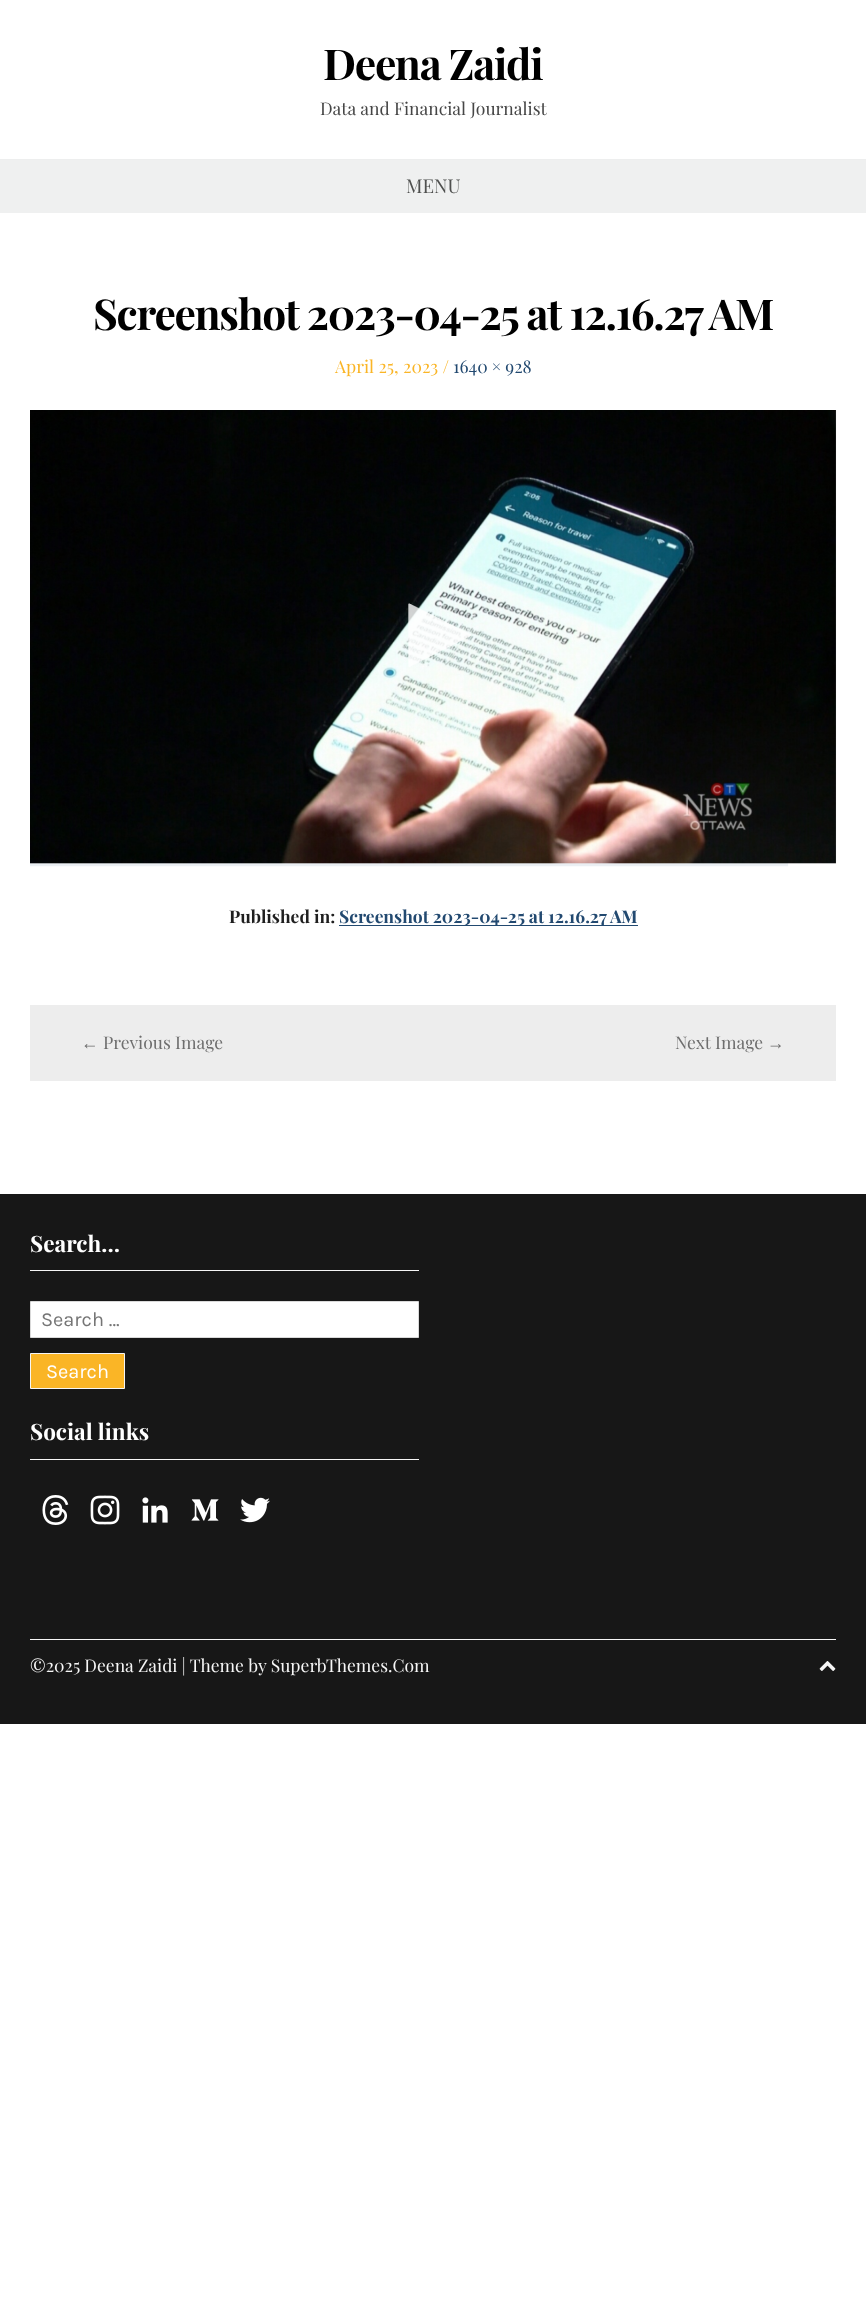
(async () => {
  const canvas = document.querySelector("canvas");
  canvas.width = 866;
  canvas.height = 2323;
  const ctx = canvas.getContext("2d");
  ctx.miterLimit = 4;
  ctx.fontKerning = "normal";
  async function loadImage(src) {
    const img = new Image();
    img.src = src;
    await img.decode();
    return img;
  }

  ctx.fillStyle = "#ffffff";
  ctx.fillRect(0, 0, 866, 2323);
  ctx.fillStyle = "#edeeee";
  ctx.fillRect(0, 159, 866, 1);
  ctx.fillStyle = "#eff0f0";
  ctx.fillRect(0, 160, 866, 53);
  ctx.drawImage(await loadImage("img/1.png"), 30, 410, 807, 457);
  for (const [x, y, w, h, color] of [
    [339, 925, 299, 1, "#224970"],
    [30, 1005, 806, 76, "#ededed"],
    [0, 1194, 866, 530, "#171717"],
    [30, 1639, 806, 1, "#f6f6f6"],
    [30, 1270, 389, 1, "#f6f6f6"],
  ]) {
    ctx.fillStyle = color;
    ctx.fillRect(x, y, w, h);
  }
  ctx.fillStyle = "#ffffff";
  ctx.beginPath();
  ctx.rect(30.5, 1301.5, 388, 36);
  ctx.fill();
  ctx.strokeStyle = "#d9d9d9";
  ctx.stroke();
  ctx.fillStyle = "#fab526";
  ctx.beginPath();
  ctx.rect(30.5, 1353.5, 94, 35);
  ctx.fill();
  ctx.strokeStyle = "#f6f6f6";
  ctx.stroke();
  ctx.fillStyle = "#f6f6f6";
  ctx.fillRect(30, 1459, 389, 1);
  ctx.drawImage(await loadImage("img/2.png"), 42, 1495, 27, 30);
  ctx.drawImage(await loadImage("img/3.png"), 90, 1495, 30, 30);
  ctx.drawImage(await loadImage("img/4.png"), 142, 1497, 26, 26);
  ctx.drawImage(await loadImage("img/5.png"), 191, 1499, 28, 22);
  ctx.drawImage(await loadImage("img/6.png"), 240, 1497, 30, 26);
  ctx.drawImage(await loadImage("img/7.png"), 819, 1661, 17, 10);
  ctx.letterSpacing = "-1.25px";
  ctx.font = "bold 42.5px Playfair Display";
  ctx.fillStyle = "#000000";
  ctx.fillText("Deena Zaidi", 323, 80);
  ctx.letterSpacing = "0px";
  ctx.font = "17.5px Playfair Display";
  ctx.fillStyle = "#464646";
  ctx.fillText("Data and Financial Journalist", 320, 115);
  ctx.font = "19px Playfair Display";
  ctx.fillStyle = "#4f504f";
  ctx.fillText("MENU", 406, 193);
  ctx.letterSpacing = "-1.25px";
  ctx.font = "bold 42.5px Playfair Display";
  ctx.fillStyle = "#000000";
  ctx.fillText("Screenshot 2023-04-25 at 12.16.27 AM", 93, 330);
  ctx.letterSpacing = "0px";
  ctx.font = "17.5px Playfair Display";
  ctx.fillStyle = "#fab526";
  ctx.fillText("April 25, 2023 /", 335, 373);
  ctx.fillStyle = "#224970";
  ctx.fillText("1640 × 928", 453, 373);
  ctx.font = "bold 17.5px Playfair Display";
  ctx.fillStyle = "#1f1f1f";
  ctx.fillText("Published in:", 229, 923);
  ctx.fillStyle = "#224970";
  ctx.fillText("Screenshot 2023-04-25 at 12.16.27 AM", 339, 923);
  ctx.font = "17.5px Liberation Serif";
  ctx.fillStyle = "#6e6e6e";
  ctx.fillText("←", 81, 1049);
  ctx.font = "17.5px Playfair Display";
  ctx.fillText("Previous Image", 103, 1049);
  ctx.fillText("Next Image", 675, 1049);
  ctx.font = "17.5px Liberation Serif";
  ctx.fillText("→", 767, 1049);
  ctx.font = "bold 22.5px Playfair Display";
  ctx.fillStyle = "#ffffff";
  ctx.fillText("Search…", 30, 1252);
  ctx.font = "20px Karla";
  ctx.fillStyle = "#757575";
  ctx.fillText("Search …", 41, 1326);
  ctx.fillStyle = "#ffffff";
  ctx.fillText("Search", 46, 1378);
  ctx.font = "bold 22.5px Playfair Display";
  ctx.fillText("Social links", 30, 1440);
  ctx.font = "17.5px Playfair Display";
  ctx.fillStyle = "#f6f6f6";
  ctx.fillText("©2025 Deena Zaidi | Theme by SuperbThemes.Com", 30, 1672);
})();
